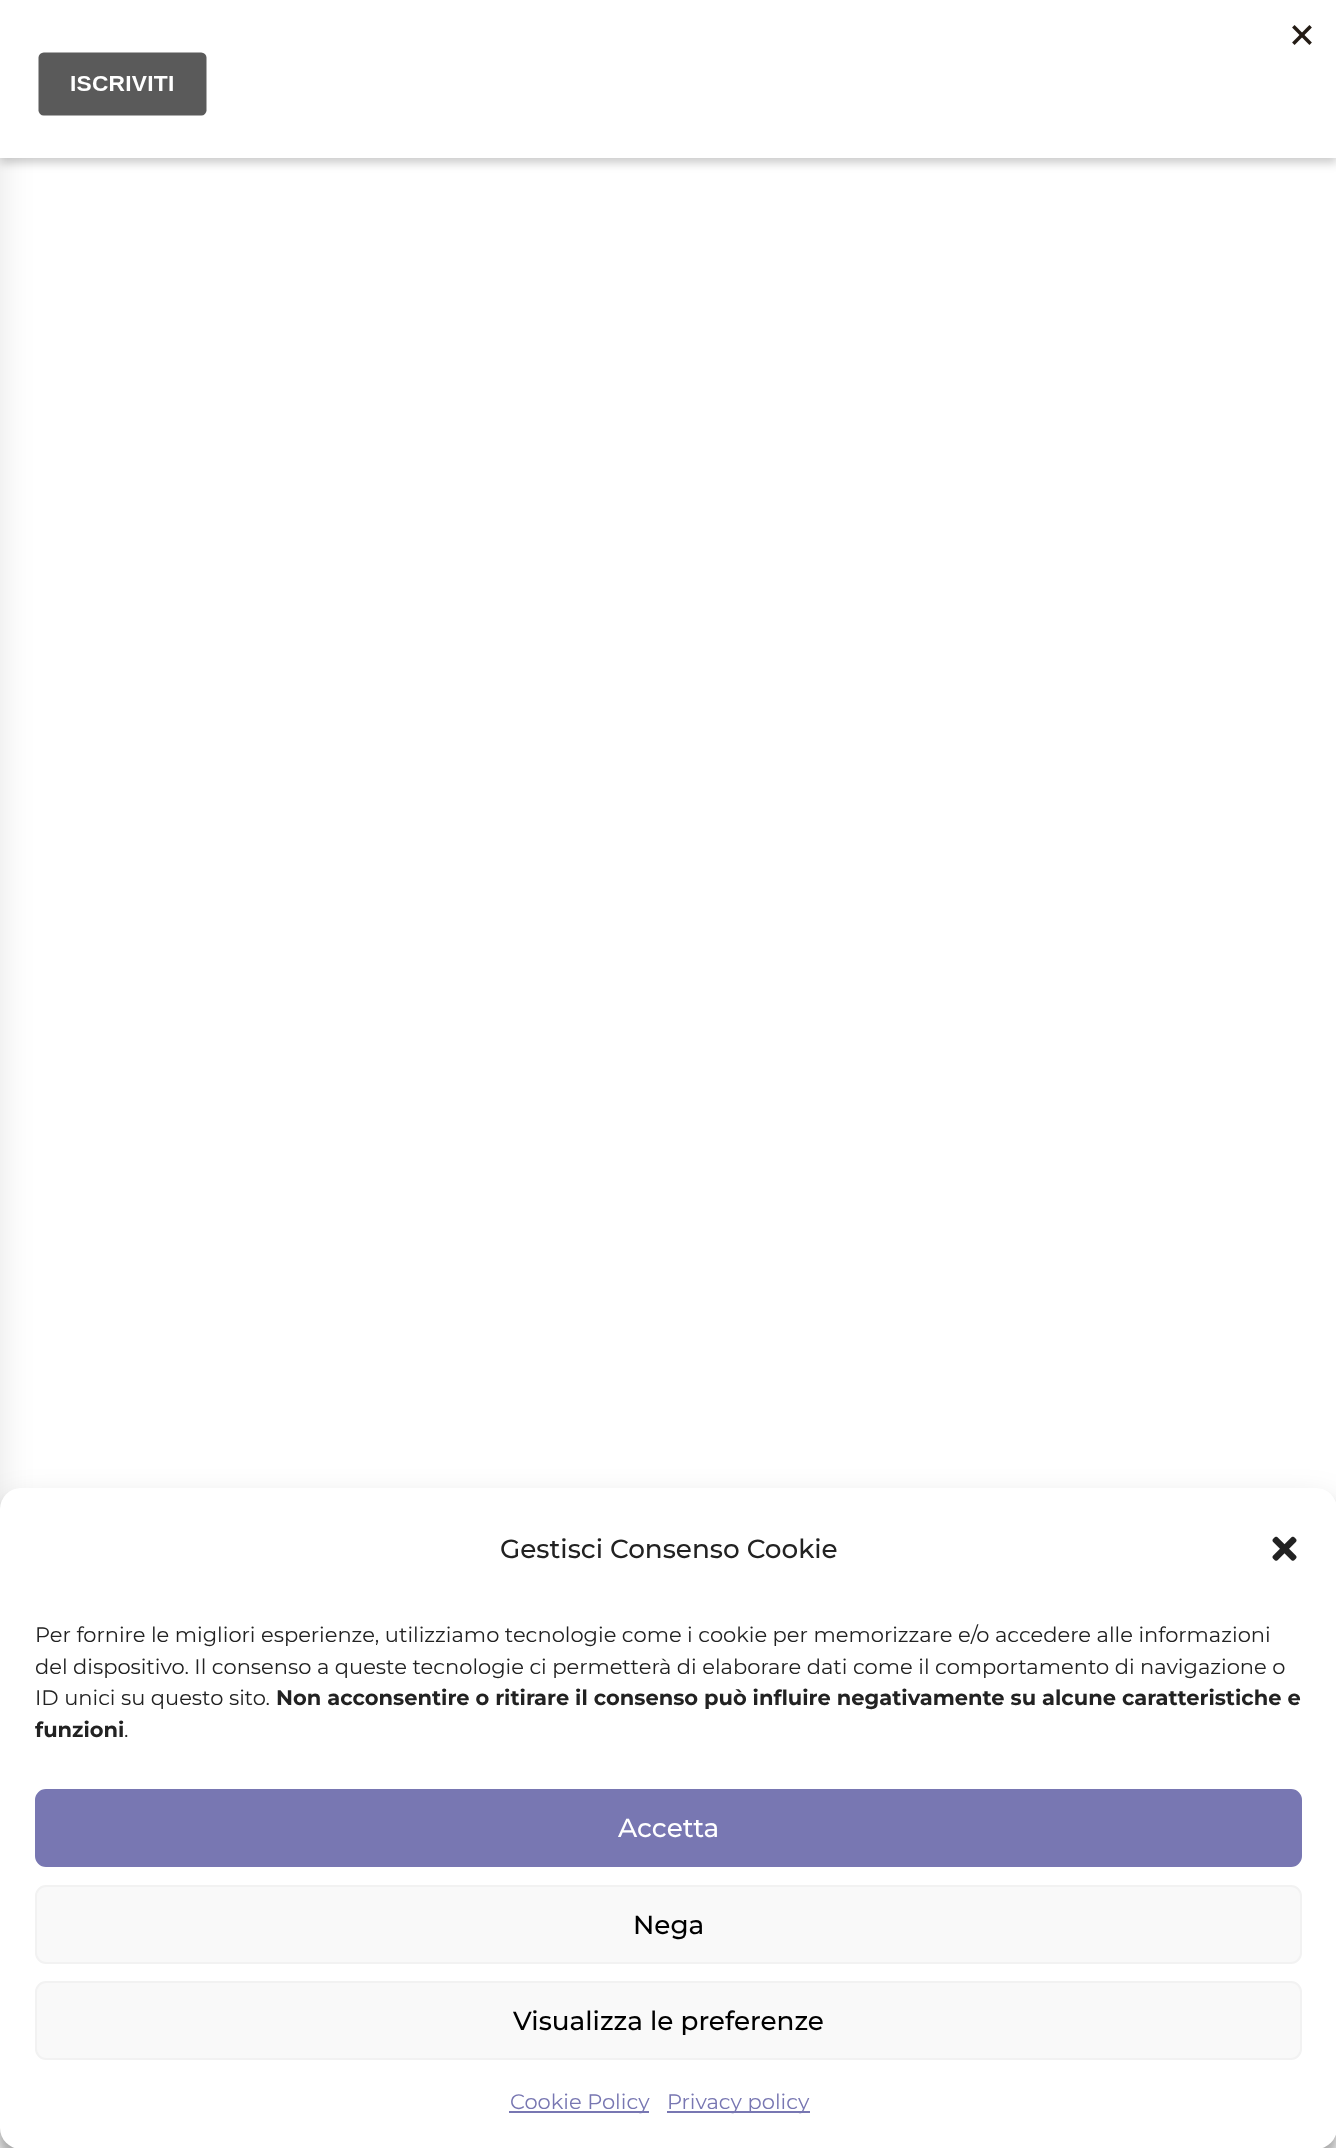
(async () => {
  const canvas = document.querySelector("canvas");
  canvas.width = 1336;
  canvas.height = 2148;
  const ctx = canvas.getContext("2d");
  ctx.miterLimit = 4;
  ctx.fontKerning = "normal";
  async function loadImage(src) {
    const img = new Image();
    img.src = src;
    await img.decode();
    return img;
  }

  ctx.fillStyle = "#ffffff";
  ctx.fillRect(0, 0, 1336, 2148);
  ctx.fillStyle = "rgba(0, 0, 0, 0.1)";
  ctx.filter = "blur(17.5px)";
  ctx.beginPath();
  ctx.rect(-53, 0, 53, 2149);
  ctx.fill();
  ctx.filter = "none";
  ctx.fillStyle = "rgba(0, 0, 0, 0.2)";
  ctx.filter = "blur(5px)";
  ctx.beginPath();
  ctx.rect(0, 5, 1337, 158);
  ctx.fill();
  ctx.filter = "none";
  ctx.fillStyle = "#ffffff";
  ctx.fillRect(0, 0, 1336, 158);
  ctx.drawImage(await loadImage("img/1.png"), 38, 25, 1274, 91);
  ctx.fillStyle = "rgba(0, 0, 0, 0.23)";
  ctx.filter = "blur(5px)";
  ctx.beginPath();
  ctx.roundRect(0, 1498, 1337, 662, 21);
  ctx.fill();
  ctx.filter = "none";
  ctx.fillStyle = "rgba(0, 0, 0, 0.19)";
  ctx.filter = "blur(17.5px)";
  ctx.beginPath();
  ctx.roundRect(0, 1505, 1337, 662, 21);
  ctx.fill();
  ctx.filter = "none";
  ctx.fillStyle = "#ffffff";
  ctx.beginPath();
  ctx.roundRect(0, 1488, 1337, 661, 21);
  ctx.fill();
  ctx.drawImage(await loadImage("img/2.png"), 1272, 1536, 25, 25);
  ctx.fillStyle = "#7877b2";
  ctx.beginPath();
  ctx.roundRect(36, 1790, 1265, 76, 10);
  ctx.fill();
  ctx.strokeStyle = "#7877b2";
  ctx.lineWidth = 2;
  ctx.stroke();
  ctx.fillStyle = "#f9f9f9";
  ctx.beginPath();
  ctx.roundRect(36, 1886, 1265, 77, 10);
  ctx.fill();
  ctx.strokeStyle = "#f2f2f2";
  ctx.stroke();
  ctx.beginPath();
  ctx.roundRect(36, 1982, 1265, 77, 10);
  ctx.fill();
  ctx.stroke();
  ctx.fillStyle = "#7877b2";
  ctx.fillRect(509, 2111, 140, 2);
  ctx.fillRect(667, 2111, 143, 2);
  ctx.font = "500 26.25px Montserrat";
  ctx.fillStyle = "#222222";
  ctx.fillText("Gestisci Consenso Cookie", 500, 1558);
  ctx.font = "21px Montserrat";
  for (const [text, x, y] of [
    ["Per fornire le migliori esperienze, utilizziamo tecnologie come i cookie per memorizzare e/o accedere alle informazioni", 35, 1642],
    ["del dispositivo. Il consenso a queste tecnologie ci permetterà di elaborare dati come il comportamento di navigazione o", 35, 1674],
    ["ID unici su questo sito.", 35, 1705],
  ]) {
    ctx.fillText(text, x, y);
  }
  ctx.font = "bold 21px Montserrat";
  ctx.fillText("Non acconsentire o ritirare il consenso può influire negativamente su alcune caratteristiche e", 276, 1705);
  ctx.fillText("funzioni", 35, 1737);
  ctx.font = "21px Montserrat";
  ctx.fillText(".", 124, 1737);
  ctx.font = "500 26.25px Montserrat";
  ctx.fillStyle = "#ffffff";
  ctx.fillText("Accetta", 618, 1837);
  ctx.fillStyle = "#000000";
  ctx.fillText("Nega", 633, 1934);
  ctx.fillText("Visualizza le preferenze", 513, 2030);
  ctx.font = "21px Montserrat";
  ctx.fillStyle = "#7877b2";
  ctx.fillText("Cookie Policy", 510, 2109);
  ctx.fillText("Privacy policy", 667, 2109);
})();
